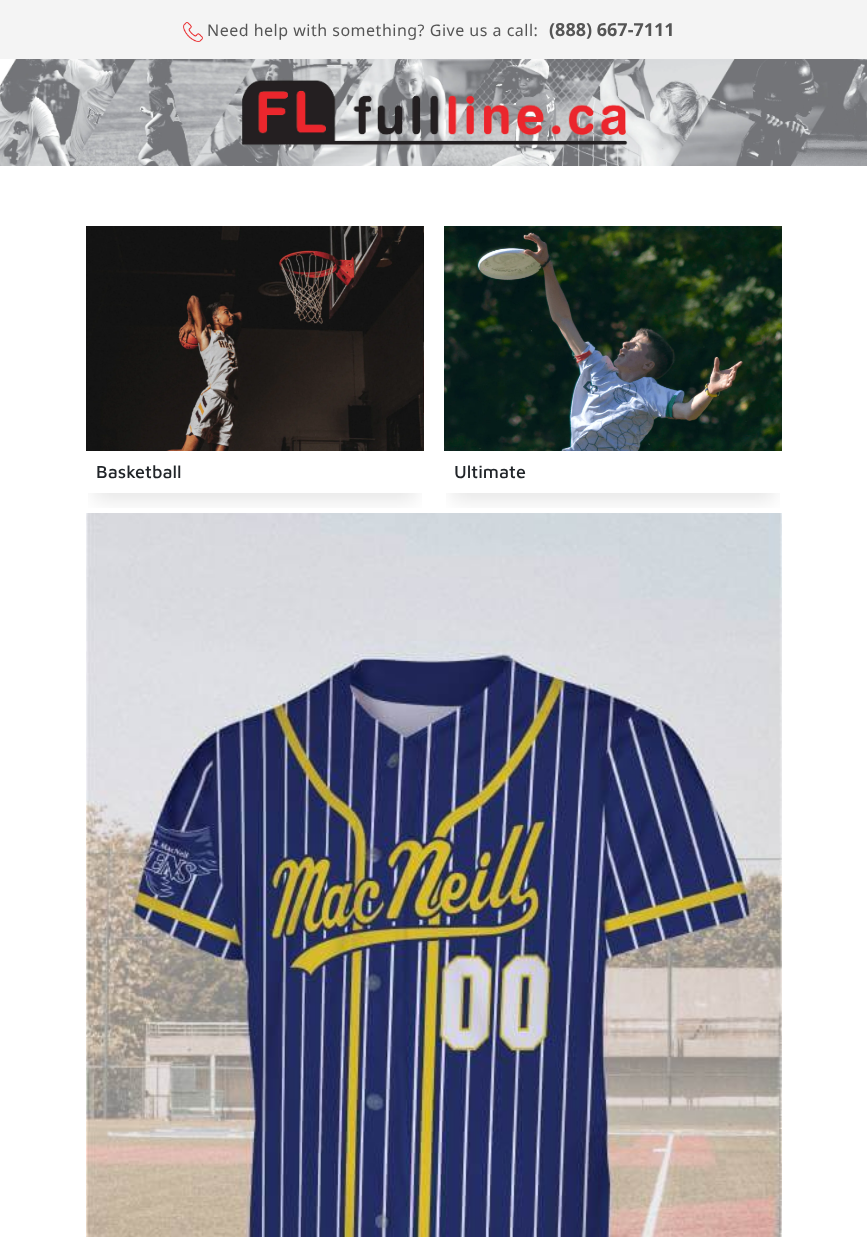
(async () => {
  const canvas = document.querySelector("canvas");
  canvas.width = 867;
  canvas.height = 1237;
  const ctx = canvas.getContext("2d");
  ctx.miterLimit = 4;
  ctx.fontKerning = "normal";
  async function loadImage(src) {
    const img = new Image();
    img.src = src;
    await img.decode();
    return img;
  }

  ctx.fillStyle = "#ffffff";
  ctx.fillRect(0, 0, 867, 1237);
  ctx.fillStyle = "#f4f4f4";
  ctx.fillRect(0, 0, 867, 59);
  ctx.drawImage(await loadImage("img/1.png"), 183, 22, 20, 20);
  ctx.drawImage(await loadImage("img/2.png"), 0, 59, 867, 107);
  ctx.save();
  ctx.beginPath();
  ctx.rect(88, 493, 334, 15);
  ctx.clip();
  ctx.fillStyle = "rgba(0, 0, 0, 0.1)";
  ctx.filter = "blur(10px)";
  ctx.beginPath();
  ctx.rect(94, 249, 322, 251);
  ctx.fill();
  ctx.filter = "none";
  ctx.restore();
  ctx.save();
  ctx.beginPath();
  ctx.rect(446, 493, 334, 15);
  ctx.clip();
  ctx.fillStyle = "rgba(0, 0, 0, 0.1)";
  ctx.filter = "blur(10px)";
  ctx.beginPath();
  ctx.rect(452, 249, 322, 251);
  ctx.fill();
  ctx.filter = "none";
  ctx.restore();
  ctx.drawImage(await loadImage("img/3.png"), 86, 226, 338, 225);
  ctx.drawImage(await loadImage("img/4.png"), 444, 226, 338, 225);
  ctx.drawImage(await loadImage("img/5.png"), 86, 513, 696, 724);
  ctx.letterSpacing = "0.5px";
  ctx.font = "16px Noto Sans";
  ctx.fillStyle = "#555555";
  ctx.fillText("Need help with something? Give us a call:", 207, 36);
  ctx.letterSpacing = "0px";
  ctx.font = "bold 18px Noto Sans";
  ctx.fillText("(888) 667-7111", 549, 36);
  ctx.font = "500 18px Maven Pro";
  ctx.fillStyle = "#212529";
  ctx.fillText("Basketball", 96, 478);
  ctx.fillText("Ultimate", 454, 478);
})();
